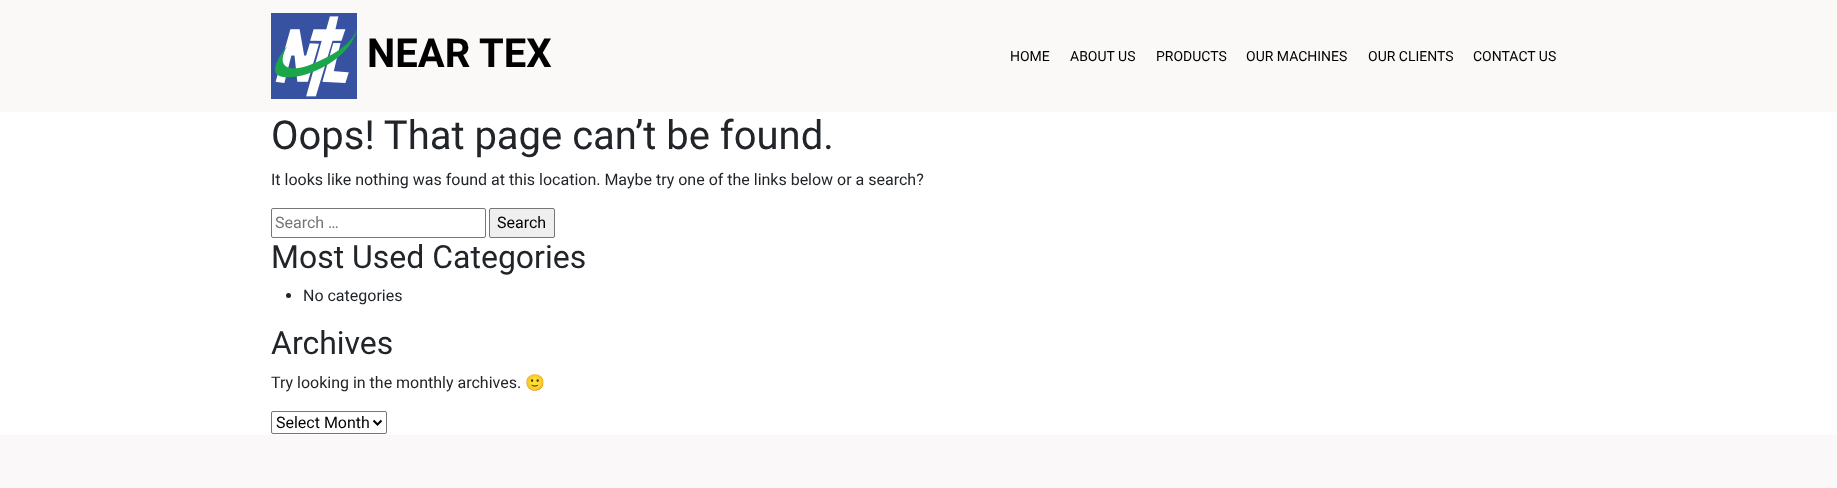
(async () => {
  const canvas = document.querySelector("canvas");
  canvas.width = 1837;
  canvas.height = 488;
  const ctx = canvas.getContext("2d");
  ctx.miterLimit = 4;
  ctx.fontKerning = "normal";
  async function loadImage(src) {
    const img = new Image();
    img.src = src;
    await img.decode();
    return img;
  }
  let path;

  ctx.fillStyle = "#ffffff";
  ctx.fillRect(0, 0, 1837, 488);
  ctx.fillStyle = "#fbf8f8";
  ctx.fillRect(0, 0, 1837, 112);
  ctx.drawImage(await loadImage("img/1.png"), 271, 13, 86, 86);
  ctx.beginPath();
  ctx.roundRect(271.5, 208.5, 214, 29, 1.5);
  ctx.strokeStyle = "#767676";
  ctx.stroke();
  ctx.fillStyle = "#efefef";
  ctx.beginPath();
  ctx.roundRect(489.5, 208.5, 65, 29, 1.5);
  ctx.fill();
  ctx.stroke();
  ctx.fillStyle = "#212529";
  ctx.beginPath();
  ctx.arc(288.5, 295.5, 2.5, 0, Math.PI * 2);
  ctx.fill();
  ctx.beginPath();
  ctx.roundRect(271.5, 411.5, 115, 22, 1.5);
  ctx.stroke();
  path = new Path2D("M373.5 420.5L377.5 424.5L381.5 420.5");
  ctx.strokeStyle = "#000000";
  ctx.lineWidth = 2;
  ctx.stroke(path);
  ctx.fillStyle = "#faf8f8";
  ctx.fillRect(0, 435, 1837, 53);
  ctx.font = "bold 40px Roboto";
  ctx.fillStyle = "#000000";
  ctx.fillText("NEAR TEX", 367, 67);
  ctx.font = "14px Roboto";
  for (const [text, x, y] of [
    ["HOME", 1010, 61],
    ["ABOUT US", 1070, 61],
    ["PRODUCTS", 1156, 61],
    ["OUR MACHINES", 1246, 61],
    ["OUR CLIENTS", 1368, 61],
    ["CONTACT US", 1473, 61],
  ]) {
    ctx.fillText(text, x, y);
  }
  ctx.font = "40px Roboto";
  ctx.fillStyle = "#212529";
  ctx.fillText("Oops! That page can’t be found.", 271, 149);
  ctx.font = "16px Roboto";
  ctx.fillText("It looks like nothing was found at this location. Maybe try one of the links below or a search?", 271, 185);
  ctx.fillStyle = "#757575";
  ctx.fillText("Search …", 275, 228);
  ctx.fillStyle = "#000000";
  ctx.fillText("Search", 497, 228);
  ctx.font = "32px Roboto";
  ctx.fillStyle = "#212529";
  ctx.fillText("Most Used Categories", 271, 268);
  ctx.font = "16px Roboto";
  ctx.fillText("No categories", 303, 301);
  ctx.font = "32px Roboto";
  ctx.fillText("Archives", 271, 354);
  ctx.font = "16px Roboto";
  ctx.fillText("Try looking in the monthly archives.", 271, 388);
  ctx.font = "16px Noto Color Emoji";
  ctx.fillText("🙂", 525, 388);
  ctx.font = "16px Roboto";
  ctx.fillStyle = "#000000";
  ctx.fillText("Select Month", 276, 428);
})();
